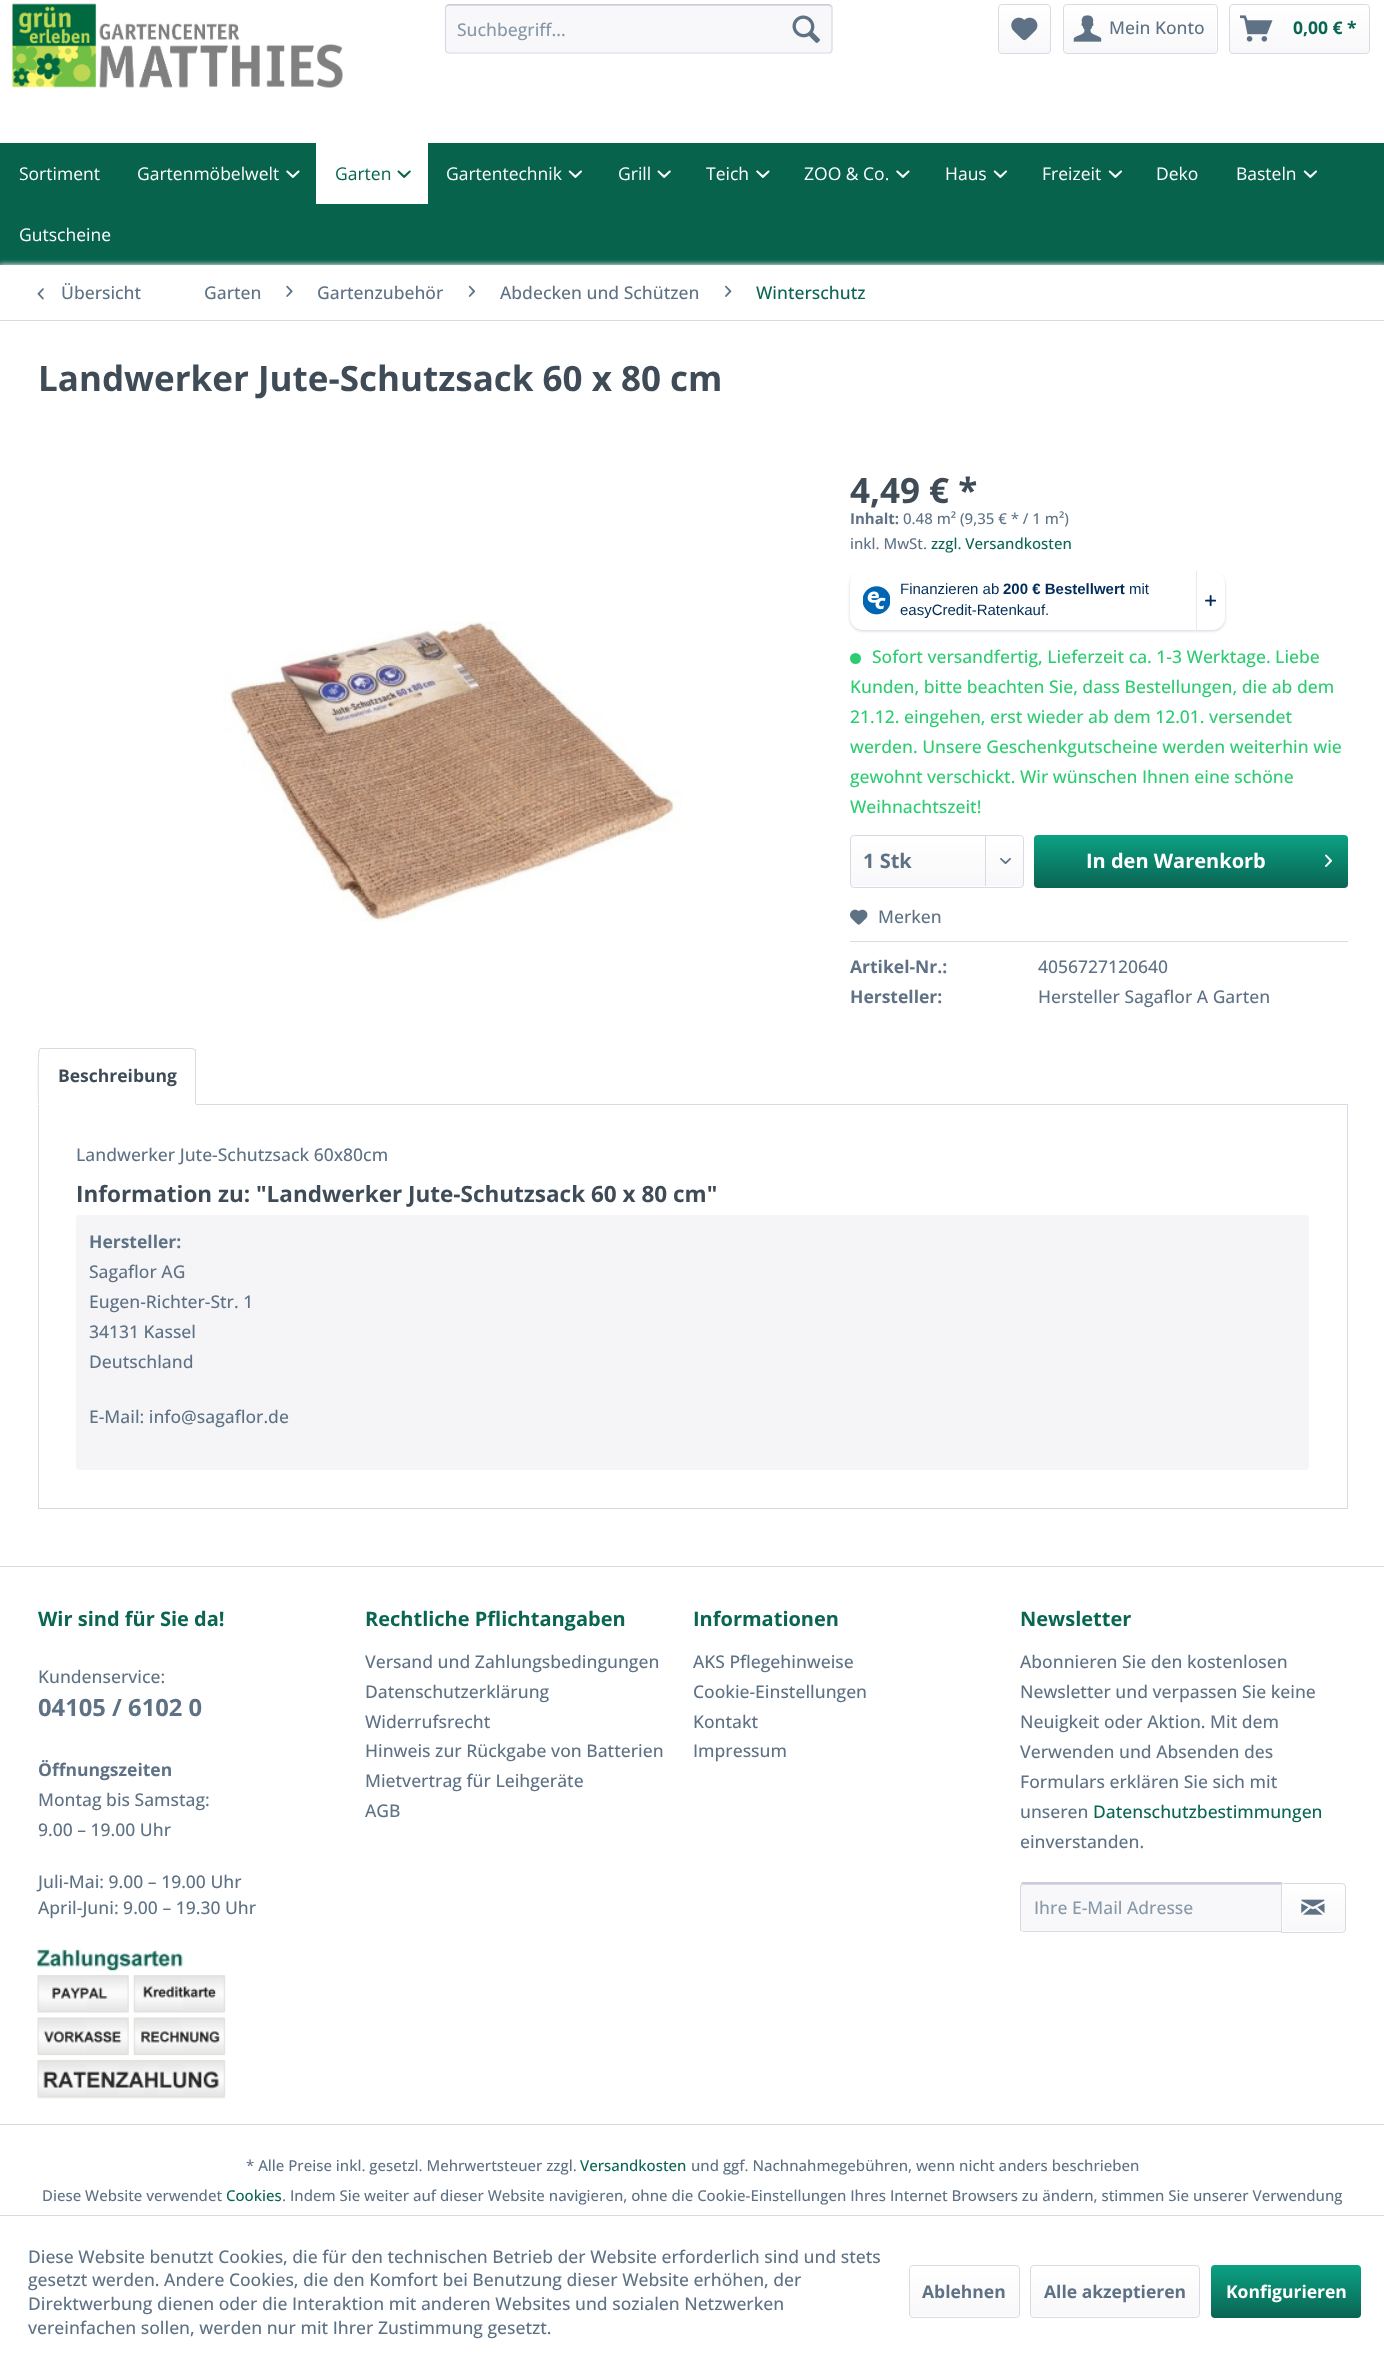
(async () => {
  const canvas = document.querySelector("canvas");
  canvas.width = 1384;
  canvas.height = 2366;
  const ctx = canvas.getContext("2d");
  ctx.miterLimit = 4;
  ctx.fontKerning = "normal";
  async function loadImage(src) {
    const img = new Image();
    img.src = src;
    await img.decode();
    return img;
  }
  let gradient, path;

  ctx.fillStyle = "#ffffff";
  ctx.fillRect(0, 0, 1384, 2366);
  ctx.drawImage(await loadImage("img/1.png"), 12, 3, 331, 85);
  ctx.fillStyle = "#f8f8fa";
  ctx.beginPath();
  ctx.roundRect(445, 4, 388, 50, 4);
  ctx.fill();
  ctx.fillStyle = "#dadae5";
  path = new Path2D("M449 6H829C830 6 831 7 831 9V6L829 5H448C446 5 446 7 446 9C446 7 447 6 449 6Z");
  ctx.fill(path);
  path = new Path2D("M446.5 5.5L449 4.5H829L831 5.5");
  ctx.strokeStyle = "#cbcbdb";
  ctx.lineWidth = 1.2;
  ctx.stroke(path);
  path = new Path2D("M831 5.5L832 7.5V50L831 52L829 53H449L446.5 52L445.5 50V7.5L446.5 5.5");
  ctx.strokeStyle = "#dadae5";
  ctx.stroke(path);
  ctx.drawImage(await loadImage("img/2.png"), 792, 15, 28, 28);
  gradient = ctx.createLinearGradient(1024, 5, 1024, 53);
  gradient.addColorStop(0, "#ffffff");
  gradient.addColorStop(1, "#f8f8fa");
  ctx.fillStyle = gradient;
  ctx.beginPath();
  ctx.roundRect(999, 5, 51, 48, 2.5);
  ctx.fill();
  ctx.beginPath();
  ctx.roundRect(998.5, 4.5, 52, 49, 3.5);
  ctx.lineWidth = 1;
  ctx.stroke();
  ctx.drawImage(await loadImage("img/3.png"), 1011, 17, 27, 24);
  gradient = ctx.createLinearGradient(1140, 5, 1140, 53);
  gradient.addColorStop(0, "#ffffff");
  gradient.addColorStop(1, "#f8f8fa");
  ctx.fillStyle = gradient;
  ctx.beginPath();
  ctx.roundRect(1064, 5, 152, 48, 2.5);
  ctx.fill();
  ctx.beginPath();
  ctx.roundRect(1063.5, 4.5, 154, 49, 3.5);
  ctx.stroke();
  ctx.drawImage(await loadImage("img/4.png"), 1073, 15, 29, 27);
  gradient = ctx.createLinearGradient(1299, 5, 1299, 53);
  gradient.addColorStop(0, "#ffffff");
  gradient.addColorStop(1, "#f8f8fa");
  ctx.fillStyle = gradient;
  ctx.beginPath();
  ctx.roundRect(1230, 5, 139, 48, 2.5);
  ctx.fill();
  ctx.beginPath();
  ctx.roundRect(1229.5, 4.5, 140, 49, 3.5);
  ctx.stroke();
  ctx.drawImage(await loadImage("img/5.png"), 1240, 15, 33, 27);
  ctx.fillStyle = "#07634c";
  ctx.fillRect(0, 143, 1384, 122);
  ctx.drawImage(await loadImage("img/6.png"), 286, 170, 14, 8);
  ctx.fillStyle = "#ffffff";
  ctx.fillRect(316, 143, 112, 61);
  ctx.drawImage(await loadImage("img/7.png"), 397, 170, 14, 8);
  ctx.drawImage(await loadImage("img/8.png"), 568, 170, 14, 8);
  ctx.drawImage(await loadImage("img/9.png"), 657, 170, 14, 8);
  ctx.drawImage(await loadImage("img/6.png"), 756, 170, 14, 8);
  ctx.drawImage(await loadImage("img/6.png"), 896, 170, 14, 8);
  ctx.drawImage(await loadImage("img/8.png"), 993, 170, 14, 8);
  ctx.drawImage(await loadImage("img/8.png"), 1108, 170, 14, 8);
  ctx.drawImage(await loadImage("img/8.png"), 1303, 170, 14, 8);
  ctx.fillStyle = "#dadae5";
  ctx.filter = "blur(2.5px)";
  ctx.beginPath();
  ctx.rect(-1, 264, 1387, 1304);
  ctx.fill();
  ctx.filter = "none";
  ctx.fillStyle = "#ffffff";
  ctx.fillRect(0, 265, 1384, 1301);
  ctx.fillStyle = "#dadae5";
  ctx.fillRect(0, 320, 1384, 1);
  ctx.drawImage(await loadImage("img/10.png"), 37, 288, 7, 12);
  ctx.drawImage(await loadImage("img/11.png"), 286, 285, 7, 12);
  ctx.drawImage(await loadImage("img/12.png"), 468, 285, 7, 12);
  ctx.drawImage(await loadImage("img/13.png"), 725, 285, 7, 12);
  ctx.drawImage(await loadImage("img/14.png"), 223, 621, 459, 301);
  ctx.fillStyle = "rgba(0, 44, 90, 0.2)";
  ctx.filter = "blur(1.5px)";
  ctx.beginPath();
  ctx.roundRect(850, 573, 375, 58, 13);
  ctx.fill();
  ctx.filter = "none";
  ctx.fillStyle = "#ffffff";
  ctx.beginPath();
  ctx.roundRect(850, 571, 375, 59, 13);
  ctx.fill();
  ctx.drawImage(await loadImage("img/15.png"), 863, 586, 27, 29);
  ctx.fillStyle = "#e6eaef";
  ctx.fillRect(1196, 571, 1, 59);
  ctx.drawImage(await loadImage("img/16.png"), 1205, 595, 11, 11);
  ctx.fillStyle = "#2ecc71";
  ctx.beginPath();
  ctx.arc(855.5, 658.5, 5.5, 0, Math.PI * 2);
  ctx.fill();
  gradient = ctx.createLinearGradient(937, 836, 937, 886);
  gradient.addColorStop(0, "#ffffff");
  gradient.addColorStop(1, "#f8f8fa");
  ctx.fillStyle = gradient;
  ctx.beginPath();
  ctx.roundRect(851, 836, 172, 50, 2.5);
  ctx.fill();
  ctx.beginPath();
  ctx.roundRect(850.5, 835.5, 173, 52, 3.5);
  ctx.stroke();
  ctx.fillStyle = "#dadae5";
  ctx.fillRect(985, 836, 1, 50);
  ctx.drawImage(await loadImage("img/17.png"), 1000, 857, 11, 8);
  gradient = ctx.createLinearGradient(1191, 835, 1191, 888);
  gradient.addColorStop(0, "#0ba183");
  gradient.addColorStop(1, "#0a6553");
  ctx.fillStyle = gradient;
  ctx.beginPath();
  ctx.roundRect(1034, 835, 314, 53, 4);
  ctx.fill();
  ctx.drawImage(await loadImage("img/18.png"), 1325, 854, 7, 13);
  ctx.fillStyle = "#dadae5";
  ctx.fillRect(850, 941, 498, 1);
  ctx.drawImage(await loadImage("img/19.png"), 850, 909, 18, 16);
  ctx.strokeRect(38.5, 1104.5, 1309, 404);
  ctx.fillStyle = "#ffffff";
  ctx.beginPath();
  ctx.roundRect(38, 1048, 158, 57, [4, 4, 0, 0]);
  ctx.fill();
  ctx.fillStyle = "#dadae5";
  path = new Path2D("M41 1048L39 1049L40 1050L41 1049H192L194 1050L195 1049L192 1048Z");
  ctx.fill(path);
  path = new Path2D("M196 1105V1050L195 1049L194 1050L195 1051V1104Z");
  ctx.fill(path);
  ctx.fillStyle = "#ffffff";
  path = new Path2D("M38 1105H196L195 1104H39Z");
  ctx.fill(path);
  ctx.fillStyle = "#dadae5";
  path = new Path2D("M39 1049C37 1051 38 1098 38 1104H39C39 1098 38 1051 40 1050Z");
  ctx.fill(path);
  ctx.fillStyle = "#f5f5f8";
  ctx.beginPath();
  ctx.roundRect(76, 1215, 1233, 255, 4);
  ctx.fill();
  for (const [x, y, w, h, color] of [
    [0, 1567, 1384, 5, "#ffffff"],
    [0, 1566, 1384, 1, "#dadae5"],
    [0, 2124, 1384, 1, "#dadae5"],
  ]) {
    ctx.fillStyle = color;
    ctx.fillRect(x, y, w, h);
  }
  ctx.drawImage(await loadImage("img/20.png"), 37, 1948, 189, 151);
  ctx.fillStyle = "#f8f8fa";
  ctx.beginPath();
  ctx.roundRect(1021, 1884, 260, 47, [2.5, 0, 0, 2.5]);
  ctx.fill();
  ctx.fillStyle = "#dadae5";
  path = new Path2D("M1024 1885H1281V1884H1024C1022 1884 1021 1885 1021 1886V1888C1021 1886 1022 1885 1024 1885Z");
  ctx.fill(path);
  ctx.fillStyle = "#cbcbdb";
  path = new Path2D("M1024 1884H1022H1021L1022 1882H1282L1281 1884Z");
  ctx.fill(path);
  ctx.fillStyle = "#dadae5";
  path = new Path2D("M1282 1932L1281 1931H1024H1022H1021L1024 1932Z");
  ctx.fill(path);
  path = new Path2D("M1020 1886V1930L1021 1931H1022L1021 1929V1886L1022 1884H1021Z");
  ctx.fill(path);
  gradient = ctx.createLinearGradient(1314, 1884, 1314, 1931);
  gradient.addColorStop(0, "#ffffff");
  gradient.addColorStop(1, "#f8f8fa");
  ctx.fillStyle = gradient;
  ctx.beginPath();
  ctx.roundRect(1283, 1884, 62, 47, [0, 2.5, 2.5, 0]);
  ctx.fill();
  ctx.beginPath();
  ctx.roundRect(1281.5, 1883.5, 64, 49, [0, 3.5, 3.5, 0]);
  ctx.stroke();
  ctx.drawImage(await loadImage("img/21.png"), 1301, 1899, 24, 16);
  ctx.fillStyle = "#dadae5";
  ctx.fillRect(0, 2215, 1384, 1);
  gradient = ctx.createLinearGradient(964, 2266, 964, 2316);
  gradient.addColorStop(0, "#ffffff");
  gradient.addColorStop(1, "#f8f8fa");
  ctx.fillStyle = gradient;
  ctx.beginPath();
  ctx.roundRect(910, 2266, 109, 50, 2.5);
  ctx.fill();
  ctx.beginPath();
  ctx.roundRect(909.5, 2265.5, 110, 52, 3.5);
  ctx.stroke();
  gradient = ctx.createLinearGradient(1115, 2266, 1115, 2316);
  gradient.addColorStop(0, "#ffffff");
  gradient.addColorStop(1, "#f8f8fa");
  ctx.fillStyle = gradient;
  ctx.beginPath();
  ctx.roundRect(1031, 2266, 168, 50, 2.5);
  ctx.fill();
  ctx.beginPath();
  ctx.roundRect(1030.5, 2265.5, 169, 52, 3.5);
  ctx.stroke();
  gradient = ctx.createLinearGradient(1286, 2265, 1286, 2318);
  gradient.addColorStop(0, "#0ba183");
  gradient.addColorStop(1, "#0a6553");
  ctx.fillStyle = gradient;
  ctx.beginPath();
  ctx.roundRect(1211, 2265, 150, 53, 4);
  ctx.fill();
  ctx.font = "500 17.5px Open Sans";
  ctx.fillStyle = "#8798a9";
  ctx.fillText("Suchbegriff...", 457, 36);
  ctx.fillStyle = "#5f7285";
  ctx.fillText("Mein Konto", 1109, 34);
  ctx.font = "bold 17.5px Open Sans";
  ctx.fillStyle = "#0a6553";
  ctx.fillText("0,00 € *", 1293, 34);
  ctx.font = "17.5px Open Sans";
  ctx.fillStyle = "#ffffff";
  ctx.fillText("Sortiment", 19, 180);
  ctx.fillText("Gartenmöbelwelt", 137, 180);
  ctx.fillStyle = "#07634c";
  ctx.fillText("Garten", 335, 180);
  ctx.fillStyle = "#ffffff";
  for (const [text, x, y] of [
    ["Gartentechnik", 446, 180],
    ["Grill", 618, 180],
    ["Teich", 706, 180],
    ["ZOO & Co.", 804, 180],
    ["Haus", 945, 180],
    ["Freizeit", 1042, 180],
    ["Deko", 1156, 180],
    ["Basteln", 1236, 180],
    ["Gutscheine", 19, 241],
  ]) {
    ctx.fillText(text, x, y);
  }
  ctx.font = "500 17.5px Open Sans";
  ctx.fillStyle = "#5f7285";
  for (const [text, x, y] of [
    ["Übersicht", 61, 299],
    ["Garten", 204, 299],
    ["Gartenzubehör", 317, 299],
    ["Abdecken und Schützen", 500, 299],
  ]) {
    ctx.fillText(text, x, y);
  }
  ctx.fillStyle = "#0a6553";
  ctx.fillText("Winterschutz", 756, 299);
  ctx.font = "bold 35px Open Sans";
  ctx.fillStyle = "#3f4c58";
  ctx.fillText("Landwerker Jute-Schutzsack 60 x 80 cm", 38, 391);
  ctx.fillText("4,49 € *", 850, 503);
  ctx.font = "bold 15px Open Sans";
  ctx.fillStyle = "#5f7285";
  ctx.fillText("Inhalt:", 850, 524);
  ctx.font = "500 15px Open Sans";
  ctx.fillText("0.48 m² (9,35 € * / 1 m²)", 903, 524);
  ctx.fillText("inkl. MwSt.", 850, 549);
  ctx.fillStyle = "#0a6553";
  ctx.fillText("zzgl. Versandkosten", 931, 549);
  ctx.font = "15px Liberation Sans";
  ctx.fillStyle = "#002c5a";
  ctx.fillText("Finanzieren ab", 900, 594);
  ctx.font = "bold 15px Liberation Sans";
  ctx.fillText("200 € Bestellwert", 1003, 594);
  ctx.font = "15px Liberation Sans";
  ctx.fillText("mit", 1129, 594);
  ctx.fillText("easyCredit-Ratenkauf.", 900, 615);
  ctx.font = "500 17.5px Open Sans";
  ctx.fillStyle = "#2ecc71";
  for (const [text, x, y] of [
    ["Sofort versandfertig, Lieferzeit ca. 1-3 Werktage. Liebe", 872, 663],
    ["Kunden, bitte beachten Sie, dass Bestellungen, die ab dem", 850, 693],
    ["21.12. eingehen, erst wieder ab dem 12.01. versendet", 850, 723],
    ["werden. Unsere Geschenkgutscheine werden weiterhin wie", 850, 753],
    ["gewohnt verschickt. Wir wünschen Ihnen eine schöne", 850, 783],
    ["Weihnachtszeit!", 850, 813],
  ]) {
    ctx.fillText(text, x, y);
  }
  ctx.font = "bold 20px Open Sans";
  ctx.fillStyle = "#5f7285";
  ctx.fillText("1 Stk", 863, 868);
  ctx.fillStyle = "#ffffff";
  ctx.fillText("In den Warenkorb", 1086, 868);
  ctx.font = "500 17.5px Open Sans";
  ctx.fillStyle = "#5f7285";
  ctx.fillText("Merken", 878, 923);
  ctx.font = "bold 17.5px Open Sans";
  ctx.fillText("Artikel-Nr.:", 850, 973);
  ctx.font = "500 17.5px Open Sans";
  ctx.fillText("4056727120640", 1038, 973);
  ctx.font = "bold 17.5px Open Sans";
  ctx.fillText("Hersteller:", 850, 1003);
  ctx.font = "500 17.5px Open Sans";
  ctx.fillText("Hersteller Sagaflor A Garten", 1038, 1003);
  ctx.font = "bold 17.5px Open Sans";
  ctx.fillStyle = "#3f4c58";
  ctx.fillText("Beschreibung", 58, 1082);
  ctx.font = "500 17.5px Open Sans";
  ctx.fillStyle = "#5f7285";
  ctx.fillText("Landwerker Jute-Schutzsack 60x80cm", 76, 1161);
  ctx.font = "bold 22.5px Open Sans";
  ctx.fillStyle = "#3f4c58";
  ctx.fillText("Information zu: \"Landwerker Jute-Schutzsack 60 x 80 cm\"", 76, 1202);
  ctx.font = "bold 17.5px Open Sans";
  ctx.fillStyle = "#5f7285";
  ctx.fillText("Hersteller:", 89, 1248);
  ctx.font = "500 17.5px Open Sans";
  for (const [text, x, y] of [
    ["Sagaflor AG", 89, 1278],
    ["Eugen-Richter-Str. 1", 89, 1308],
    ["34131 Kassel", 89, 1338],
    ["Deutschland", 89, 1368],
    ["E-Mail: info@sagaflor.de", 89, 1423],
  ]) {
    ctx.fillText(text, x, y);
  }
  ctx.font = "bold 20px Open Sans";
  ctx.fillStyle = "#0a6553";
  ctx.fillText("Wir sind für Sie da!", 38, 1626);
  ctx.font = "500 17.5px Open Sans";
  ctx.fillStyle = "#5f7285";
  ctx.fillText("Kundenservice:", 38, 1683);
  ctx.font = "bold 23.75px Open Sans";
  ctx.fillText("04105 / 6102 0", 38, 1716);
  ctx.font = "bold 17.5px Open Sans";
  ctx.fillText("Öffnungszeiten", 38, 1776);
  ctx.font = "500 17.5px Open Sans";
  for (const [text, x, y] of [
    ["Montag bis Samstag:", 38, 1806],
    ["9.00 – 19.00 Uhr", 38, 1836],
    ["Juli-Mai: 9.00 – 19.00 Uhr", 38, 1888],
    ["April-Juni: 9.00 – 19.30 Uhr", 38, 1914],
  ]) {
    ctx.fillText(text, x, y);
  }
  ctx.font = "bold 20px Open Sans";
  ctx.fillStyle = "#0a6553";
  ctx.fillText("Rechtliche Pflichtangaben", 365, 1626);
  ctx.font = "500 17.5px Open Sans";
  ctx.fillStyle = "#5f7285";
  for (const [text, x, y] of [
    ["Versand und Zahlungsbedingungen", 365, 1668],
    ["Datenschutzerklärung", 365, 1698],
    ["Widerrufsrecht", 365, 1728],
    ["Hinweis zur Rückgabe von Batterien", 365, 1757],
    ["Mietvertrag für Leihgeräte", 365, 1787],
    ["AGB", 365, 1817],
  ]) {
    ctx.fillText(text, x, y);
  }
  ctx.font = "bold 20px Open Sans";
  ctx.fillStyle = "#0a6553";
  ctx.fillText("Informationen", 693, 1626);
  ctx.font = "500 17.5px Open Sans";
  ctx.fillStyle = "#5f7285";
  for (const [text, x, y] of [
    ["AKS Pflegehinweise", 693, 1668],
    ["Cookie-Einstellungen", 693, 1698],
    ["Kontakt", 693, 1728],
    ["Impressum", 693, 1757],
  ]) {
    ctx.fillText(text, x, y);
  }
  ctx.font = "bold 20px Open Sans";
  ctx.fillStyle = "#0a6553";
  ctx.fillText("Newsletter", 1020, 1626);
  ctx.font = "500 17.5px Open Sans";
  ctx.fillStyle = "#5f7285";
  for (const [text, x, y] of [
    ["Abonnieren Sie den kostenlosen", 1020, 1668],
    ["Newsletter und verpassen Sie keine", 1020, 1698],
    ["Neuigkeit oder Aktion. Mit dem", 1020, 1728],
    ["Verwenden und Absenden des", 1020, 1758],
    ["Formulars erklären Sie sich mit", 1020, 1788],
    ["unseren", 1020, 1818],
  ]) {
    ctx.fillText(text, x, y);
  }
  ctx.fillStyle = "#0a6553";
  ctx.fillText("Datenschutzbestimmungen", 1093, 1818);
  ctx.fillStyle = "#5f7285";
  ctx.fillText("einverstanden.", 1020, 1848);
  ctx.fillStyle = "#8798a9";
  ctx.fillText("Ihre E-Mail Adresse", 1034, 1914);
  ctx.font = "500 15px Open Sans";
  ctx.fillStyle = "#5f7285";
  ctx.fillText("* Alle Preise inkl. gesetzl. Mehrwertsteuer zzgl.", 246, 2171);
  ctx.fillStyle = "#0a6553";
  ctx.fillText("Versandkosten", 580, 2171);
  ctx.fillStyle = "#5f7285";
  ctx.fillText("und ggf. Nachnahmegebühren, wenn nicht anders beschrieben", 691, 2171);
  ctx.fillText("Diese Website verwendet", 42, 2201);
  ctx.fillStyle = "#0a6553";
  ctx.fillText("Cookies", 226, 2201);
  ctx.fillStyle = "#5f7285";
  ctx.fillText(". Indem Sie weiter auf dieser Website navigieren, ohne die Cookie-Einstellungen Ihres Internet Browsers zu ändern, stimmen Sie unserer Verwendung", 282, 2201);
  ctx.font = "500 17.5px Open Sans";
  for (const [text, x, y] of [
    ["Diese Website benutzt Cookies, die für den technischen Betrieb der Website erforderlich sind und stets", 28, 2263],
    ["gesetzt werden. Andere Cookies, die den Komfort bei Benutzung dieser Website erhöhen, der", 28, 2286],
    ["Direktwerbung dienen oder die Interaktion mit anderen Websites und sozialen Netzwerken", 28, 2310],
    ["vereinfachen sollen, werden nur mit Ihrer Zustimmung gesetzt.", 28, 2334],
  ]) {
    ctx.fillText(text, x, y);
  }
  ctx.font = "bold 17.5px Open Sans";
  ctx.fillText("Ablehnen", 922, 2298);
  ctx.fillText("Alle akzeptieren", 1044, 2298);
  ctx.fillStyle = "#ffffff";
  ctx.fillText("Konfigurieren", 1226, 2298);
})();
